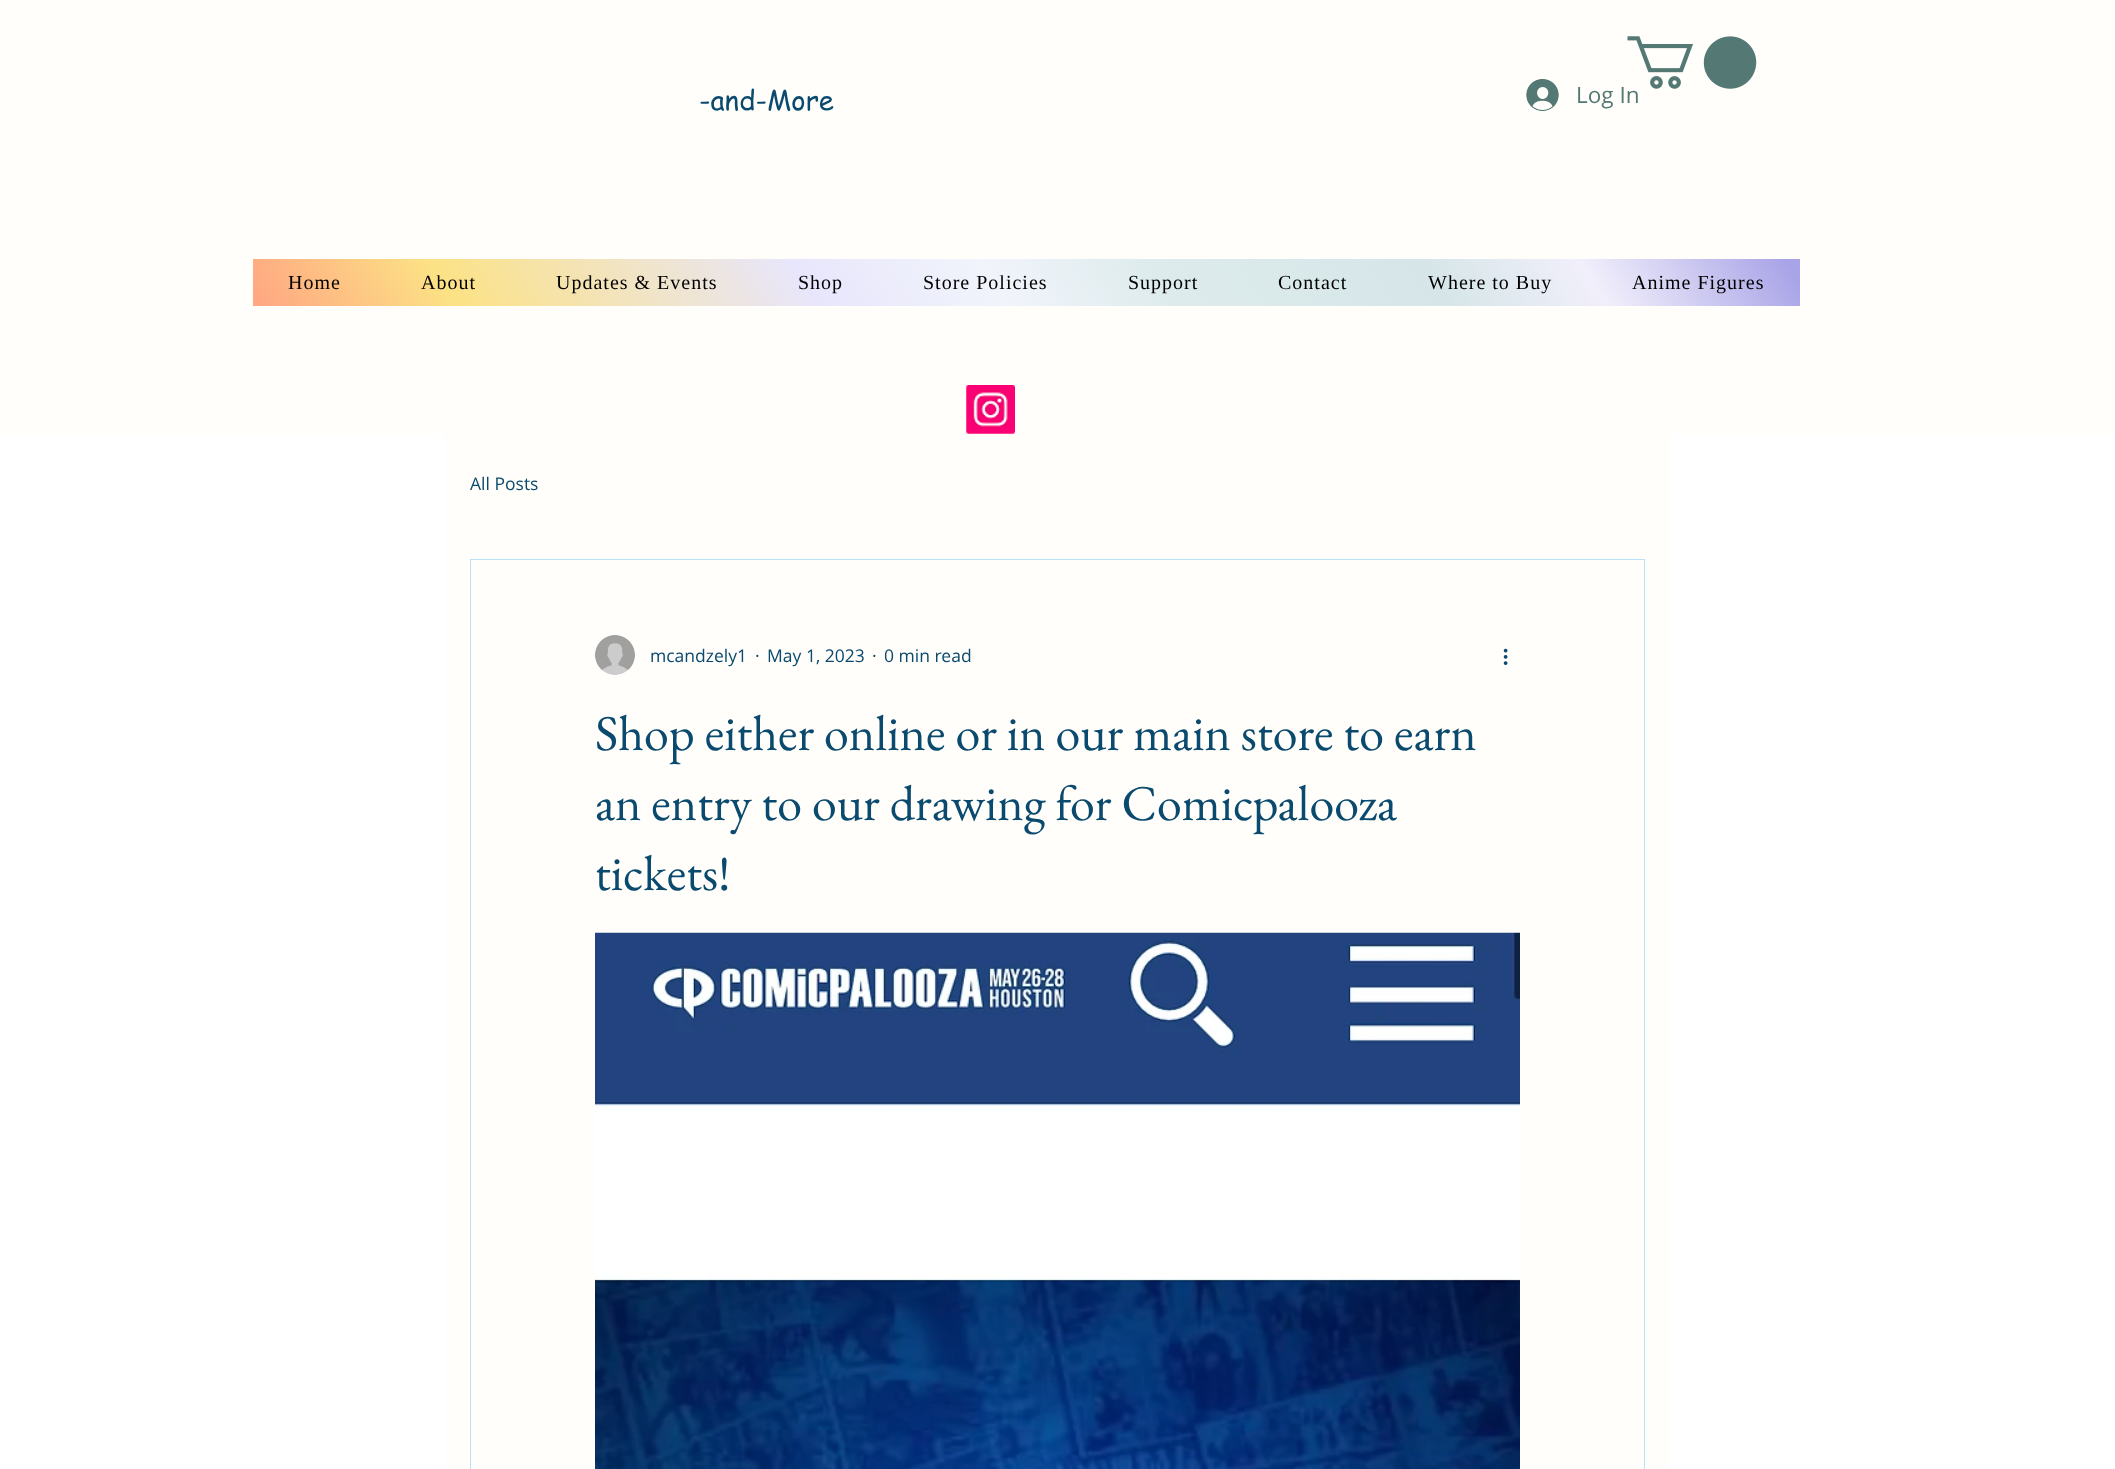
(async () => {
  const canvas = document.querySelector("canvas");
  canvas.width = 2115;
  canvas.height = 1469;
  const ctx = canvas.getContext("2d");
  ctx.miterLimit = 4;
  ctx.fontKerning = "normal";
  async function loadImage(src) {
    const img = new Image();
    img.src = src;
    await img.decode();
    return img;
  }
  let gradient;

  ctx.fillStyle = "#ffffff";
  ctx.fillRect(0, 0, 2115, 1469);
  ctx.fillStyle = "#fffefa";
  ctx.fillRect(0, 0, 2115, 434);
  ctx.drawImage(await loadImage("img/1.png"), 1627, 36, 130, 53);
  ctx.drawImage(await loadImage("img/2.png"), 1526, 79, 33, 32);
  gradient = ctx.createLinearGradient(459, 637, 1593, -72);
  gradient.addColorStop(0, "#ffa582");
  gradient.addColorStop(0.13, "#fce285");
  gradient.addColorStop(0.36, "#e8e6fc");
  gradient.addColorStop(0.48, "#f1f4fb");
  gradient.addColorStop(0.59, "#ddebec");
  gradient.addColorStop(0.76, "#d6e6e8");
  gradient.addColorStop(0.86, "#f1effb");
  gradient.addColorStop(0.99, "#a9a4e7");
  ctx.fillStyle = gradient;
  ctx.fillRect(253, 259, 1547, 47);
  ctx.drawImage(await loadImage("img/3.png"), 966, 385, 49, 49);
  ctx.fillStyle = "#fffefa";
  ctx.fillRect(445, 434, 1225, 1035);
  ctx.strokeStyle = "#b9e2f8";
  ctx.strokeRect(470.5, 559.5, 1174, 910);
  ctx.drawImage(await loadImage("img/4.png"), 595, 635, 40, 40);
  ctx.drawImage(await loadImage("img/5.png"), 1503, 648, 5, 17);
  ctx.drawImage(await loadImage("img/6.png"), 595, 932, 925, 537);
  ctx.font = "27.5px 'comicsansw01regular'";
  ctx.fillStyle = "#0a4a6e";
  ctx.fillText("-and-More", 699, 110);
  ctx.font = "22.5px Open Sans";
  ctx.fillStyle = "#547873";
  ctx.fillText("Log In", 1576, 103);
  ctx.letterSpacing = "1px";
  ctx.font = "20px Liberation Serif";
  ctx.fillStyle = "#000000";
  for (const [text, x, y] of [
    ["Home", 288, 289],
    ["About", 421, 289],
    ["Updates & Events", 556, 289],
    ["Shop", 798, 289],
    ["Store Policies", 923, 289],
    ["Support", 1128, 289],
    ["Contact", 1278, 289],
    ["Where to Buy", 1428, 289],
    ["Anime Figures", 1632, 289],
  ]) {
    ctx.fillText(text, x, y);
  }
  ctx.letterSpacing = "0px";
  ctx.font = "17.5px Open Sans";
  ctx.fillStyle = "#0a4a6e";
  for (const [text, x, y] of [
    ["All Posts", 470, 490],
    ["mcandzely1", 650, 662],
    ["·", 755, 662],
    ["May 1, 2023", 767, 662],
    ["·", 872, 662],
    ["0 min read", 884, 662],
  ]) {
    ctx.fillText(text, x, y);
  }
  ctx.font = "50px EB Garamond";
  for (const [text, x, y] of [
    ["Shop either online or in our main store to earn", 595, 750],
    ["an entry to our drawing for Comicpalooza", 595, 820],
    ["tickets!", 595, 890],
  ]) {
    ctx.fillText(text, x, y);
  }
})();
